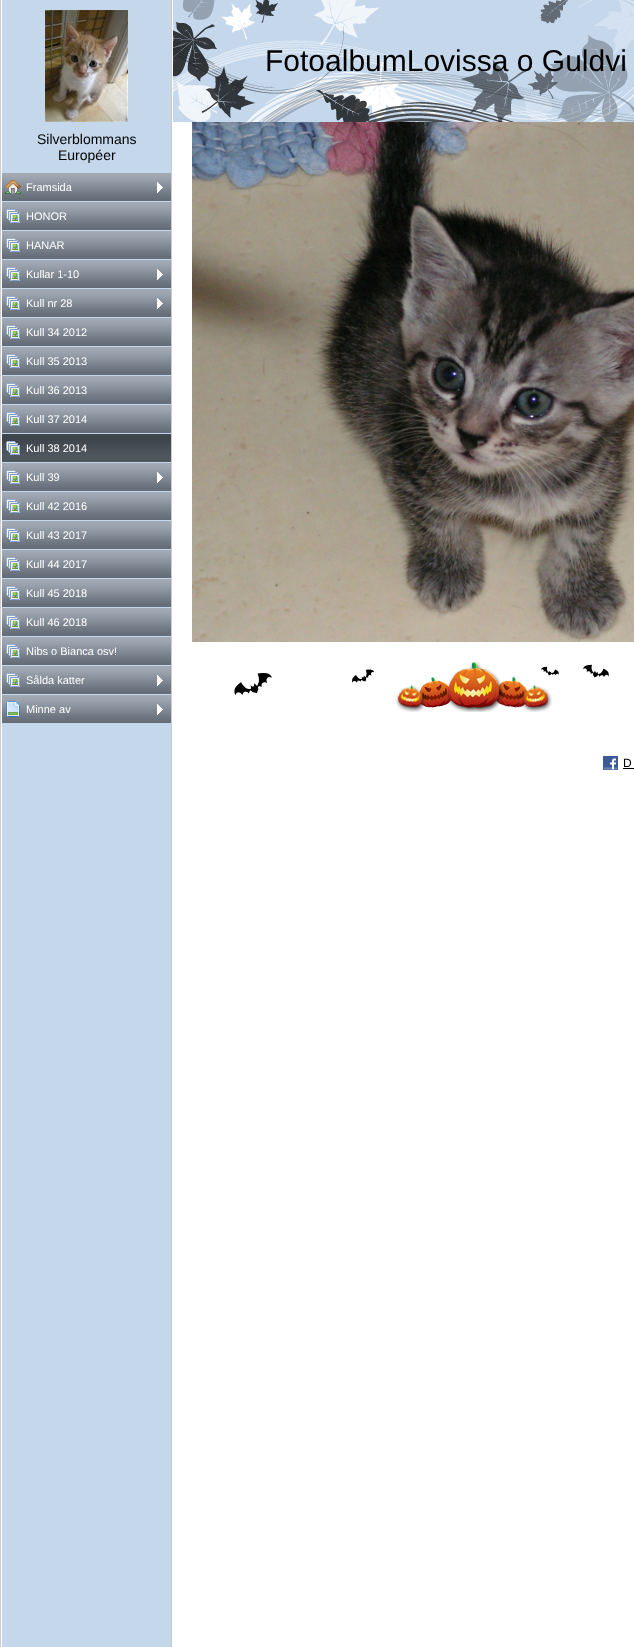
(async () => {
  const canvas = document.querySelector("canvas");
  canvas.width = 634;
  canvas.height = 1647;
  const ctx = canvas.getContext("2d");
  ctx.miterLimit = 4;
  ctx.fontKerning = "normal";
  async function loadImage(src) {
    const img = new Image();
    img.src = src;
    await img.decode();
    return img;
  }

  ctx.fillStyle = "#ffffff";
  ctx.fillRect(0, 0, 634, 1647);
  ctx.fillStyle = "#cccccc";
  ctx.fillRect(0, 0, 1, 1647);
  ctx.fillStyle = "#c4d7eb";
  ctx.fillRect(2, 0, 169, 1647);
  ctx.drawImage(await loadImage("img/1.png"), 45, 10, 83, 112);
  ctx.drawImage(await loadImage("img/2.png"), 2, 173, 169, 28);
  ctx.drawImage(await loadImage("img/3.png"), 5, 180, 16, 14);
  ctx.drawImage(await loadImage("img/4.png"), 157, 182, 6, 11);
  ctx.drawImage(await loadImage("img/2.png"), 2, 202, 169, 28);
  ctx.drawImage(await loadImage("img/5.png"), 6, 209, 14, 14);
  ctx.drawImage(await loadImage("img/2.png"), 2, 231, 169, 28);
  ctx.drawImage(await loadImage("img/5.png"), 6, 238, 14, 14);
  ctx.drawImage(await loadImage("img/2.png"), 2, 260, 169, 28);
  ctx.drawImage(await loadImage("img/5.png"), 6, 267, 14, 14);
  ctx.drawImage(await loadImage("img/4.png"), 157, 269, 6, 11);
  ctx.drawImage(await loadImage("img/2.png"), 2, 289, 169, 28);
  ctx.drawImage(await loadImage("img/5.png"), 6, 296, 14, 14);
  ctx.drawImage(await loadImage("img/4.png"), 157, 298, 6, 11);
  ctx.drawImage(await loadImage("img/2.png"), 2, 318, 169, 28);
  ctx.drawImage(await loadImage("img/5.png"), 6, 325, 14, 14);
  ctx.drawImage(await loadImage("img/2.png"), 2, 347, 169, 28);
  ctx.drawImage(await loadImage("img/5.png"), 6, 354, 14, 14);
  ctx.drawImage(await loadImage("img/2.png"), 2, 376, 169, 28);
  ctx.drawImage(await loadImage("img/5.png"), 6, 383, 14, 14);
  ctx.drawImage(await loadImage("img/2.png"), 2, 405, 169, 28);
  ctx.drawImage(await loadImage("img/5.png"), 6, 412, 14, 14);
  ctx.drawImage(await loadImage("img/6.png"), 2, 434, 169, 28);
  ctx.drawImage(await loadImage("img/7.png"), 6, 441, 14, 14);
  ctx.drawImage(await loadImage("img/2.png"), 2, 463, 169, 28);
  ctx.drawImage(await loadImage("img/5.png"), 6, 470, 14, 14);
  ctx.drawImage(await loadImage("img/4.png"), 157, 472, 6, 11);
  ctx.drawImage(await loadImage("img/2.png"), 2, 492, 169, 28);
  ctx.drawImage(await loadImage("img/5.png"), 6, 499, 14, 14);
  ctx.drawImage(await loadImage("img/2.png"), 2, 521, 169, 28);
  ctx.drawImage(await loadImage("img/5.png"), 6, 528, 14, 14);
  ctx.drawImage(await loadImage("img/2.png"), 2, 550, 169, 28);
  ctx.drawImage(await loadImage("img/5.png"), 6, 557, 14, 14);
  ctx.drawImage(await loadImage("img/2.png"), 2, 579, 169, 28);
  ctx.drawImage(await loadImage("img/5.png"), 6, 586, 14, 14);
  ctx.drawImage(await loadImage("img/2.png"), 2, 608, 169, 28);
  ctx.drawImage(await loadImage("img/5.png"), 6, 615, 14, 14);
  ctx.drawImage(await loadImage("img/2.png"), 2, 637, 169, 28);
  ctx.drawImage(await loadImage("img/5.png"), 6, 644, 14, 14);
  ctx.drawImage(await loadImage("img/2.png"), 2, 666, 169, 28);
  ctx.drawImage(await loadImage("img/5.png"), 6, 673, 14, 14);
  ctx.drawImage(await loadImage("img/4.png"), 157, 675, 6, 11);
  ctx.drawImage(await loadImage("img/2.png"), 2, 695, 169, 28);
  ctx.drawImage(await loadImage("img/8.png"), 6, 701, 14, 16);
  ctx.drawImage(await loadImage("img/4.png"), 157, 704, 6, 11);
  ctx.fillStyle = "#cccccc";
  ctx.fillRect(171, 0, 1, 1647);
  ctx.fillStyle = "#c4d7eb";
  ctx.fillRect(173, 0, 461, 122);
  ctx.drawImage(await loadImage("img/9.png"), 173, 0, 461, 122);
  ctx.drawImage(await loadImage("img/10.png"), 192, 122, 442, 520);
  ctx.drawImage(await loadImage("img/11.png"), 234, 662, 375, 50);
  ctx.drawImage(await loadImage("img/12.png"), 603, 756, 15, 14);
  ctx.fillStyle = "#000000";
  ctx.fillRect(623, 768, 11, 1);
  ctx.font = "14px Liberation Sans";
  ctx.fillText("Silverblommans", 37, 144);
  ctx.fillText("Européer", 58, 160);
  ctx.font = "11px Liberation Sans";
  ctx.fillStyle = "#ffffff";
  for (const [text, x, y] of [
    ["Framsida", 26, 191],
    ["HONOR", 26, 220],
    ["HANAR", 26, 249],
    ["Kullar 1-10", 26, 278],
    ["Kull nr 28", 26, 307],
    ["Kull 34 2012", 26, 336],
    ["Kull 35 2013", 26, 365],
    ["Kull 36 2013", 26, 394],
    ["Kull 37 2014", 26, 423],
    ["Kull 38 2014", 26, 452],
    ["Kull 39", 26, 481],
    ["Kull 42 2016", 26, 510],
    ["Kull 43 2017", 26, 539],
    ["Kull 44 2017", 26, 568],
    ["Kull 45 2018", 26, 597],
    ["Kull 46 2018", 26, 626],
    ["Nibs o Bianca osv!", 26, 655],
    ["Sålda katter", 26, 684],
    ["Minne av", 26, 713],
  ]) {
    ctx.fillText(text, x, y);
  }
  ctx.font = "30px Liberation Sans";
  ctx.fillStyle = "#000000";
  ctx.fillText("FotoalbumLovissa o Guldvi", 265, 71);
  ctx.font = "12px Liberation Sans";
  ctx.fillText("D", 623, 767);
})();
